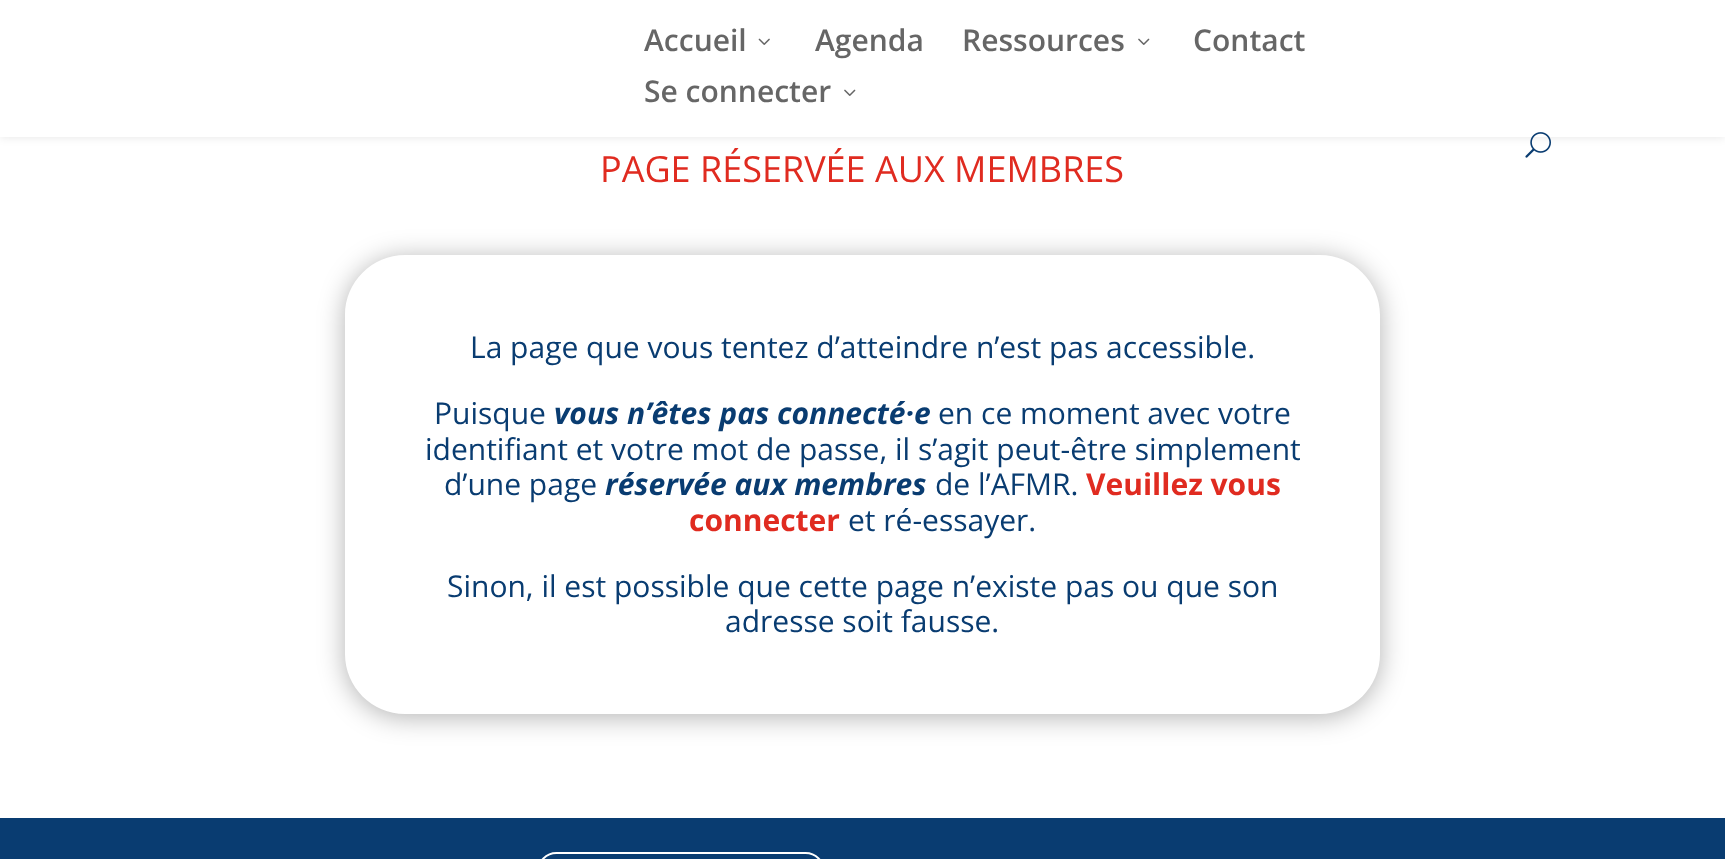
(async () => {
  const canvas = document.querySelector("canvas");
  canvas.width = 1725;
  canvas.height = 859;
  const ctx = canvas.getContext("2d");
  ctx.miterLimit = 4;
  ctx.fontKerning = "normal";
  async function loadImage(src) {
    const img = new Image();
    img.src = src;
    await img.decode();
    return img;
  }
  let path;

  ctx.fillStyle = "#ffffff";
  ctx.fillRect(0, 0, 1725, 859);
  ctx.fillStyle = "rgba(0, 0, 0, 0.1)";
  ctx.filter = "blur(5px)";
  ctx.beginPath();
  ctx.rect(0, 0, 1725, 137);
  ctx.fill();
  ctx.filter = "none";
  ctx.fillStyle = "#ffffff";
  ctx.fillRect(0, 0, 1725, 137);
  ctx.drawImage(await loadImage("img/1.png"), 758, 38, 12, 7);
  ctx.drawImage(await loadImage("img/2.png"), 1138, 38, 12, 7);
  ctx.drawImage(await loadImage("img/2.png"), 844, 89, 12, 7);
  ctx.drawImage(await loadImage("img/3.png"), 1525, 132, 26, 26);
  ctx.save();
  path = new Path2D("M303 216H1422V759H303ZM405 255H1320C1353 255 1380 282 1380 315V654C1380 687 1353 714 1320 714H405C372 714 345 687 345 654V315C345 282 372 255 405 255Z");
  ctx.clip(path, "evenodd");
  ctx.fillStyle = "rgba(0, 0, 0, 0.3)";
  ctx.filter = "blur(13.5px)";
  ctx.beginPath();
  ctx.roundRect(345, 258, 1035, 459, 60);
  ctx.fill();
  ctx.filter = "none";
  ctx.restore();
  ctx.fillStyle = "#093c71";
  ctx.fillRect(0, 818, 1725, 41);
  ctx.beginPath();
  ctx.roundRect(538, 853, 286, 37, 29);
  ctx.strokeStyle = "#ffffff";
  ctx.lineWidth = 2;
  ctx.stroke();
  ctx.font = "600 30px Open Sans";
  ctx.fillStyle = "#666666";
  for (const [text, x, y] of [
    ["Accueil", 644, 51],
    ["Agenda", 815, 51],
    ["Ressources", 962, 51],
    ["Contact", 1193, 51],
    ["Se connecter", 644, 102],
  ]) {
    ctx.fillText(text, x, y);
  }
  ctx.font = "36px Open Sans";
  ctx.fillStyle = "#e02b20";
  ctx.fillText("PAGE RÉSERVÉE AUX MEMBRES", 600, 182);
  ctx.font = "30px Open Sans";
  ctx.fillStyle = "#093c71";
  ctx.fillText("La page que vous tentez d’atteindre n’est pas accessible.", 470, 358);
  ctx.fillText("Puisque", 434, 424);
  ctx.font = "italic bold 30px Open Sans";
  ctx.fillText("vous n’êtes pas connecté·e", 554, 424);
  ctx.font = "30px Open Sans";
  for (const [text, x, y] of [
    ["en ce moment avec votre", 938, 424],
    ["identifiant et votre mot de passe, il s’agit peut-être simplement", 425, 460],
    ["d’une page", 444, 495],
  ]) {
    ctx.fillText(text, x, y);
  }
  ctx.font = "italic bold 30px Open Sans";
  ctx.fillText("réservée aux membres", 605, 495);
  ctx.font = "30px Open Sans";
  ctx.fillText("de l’AFMR.", 935, 495);
  ctx.font = "bold 30px Open Sans";
  ctx.fillStyle = "#e02b20";
  ctx.fillText("Veuillez vous", 1086, 495);
  ctx.fillText("connecter", 689, 531);
  ctx.font = "30px Open Sans";
  ctx.fillStyle = "#093c71";
  for (const [text, x, y] of [
    ["et ré-essayer.", 848, 531],
    ["Sinon, il est possible que cette page n’existe pas ou que son", 447, 597],
    ["adresse soit fausse.", 725, 632],
  ]) {
    ctx.fillText(text, x, y);
  }
})();
